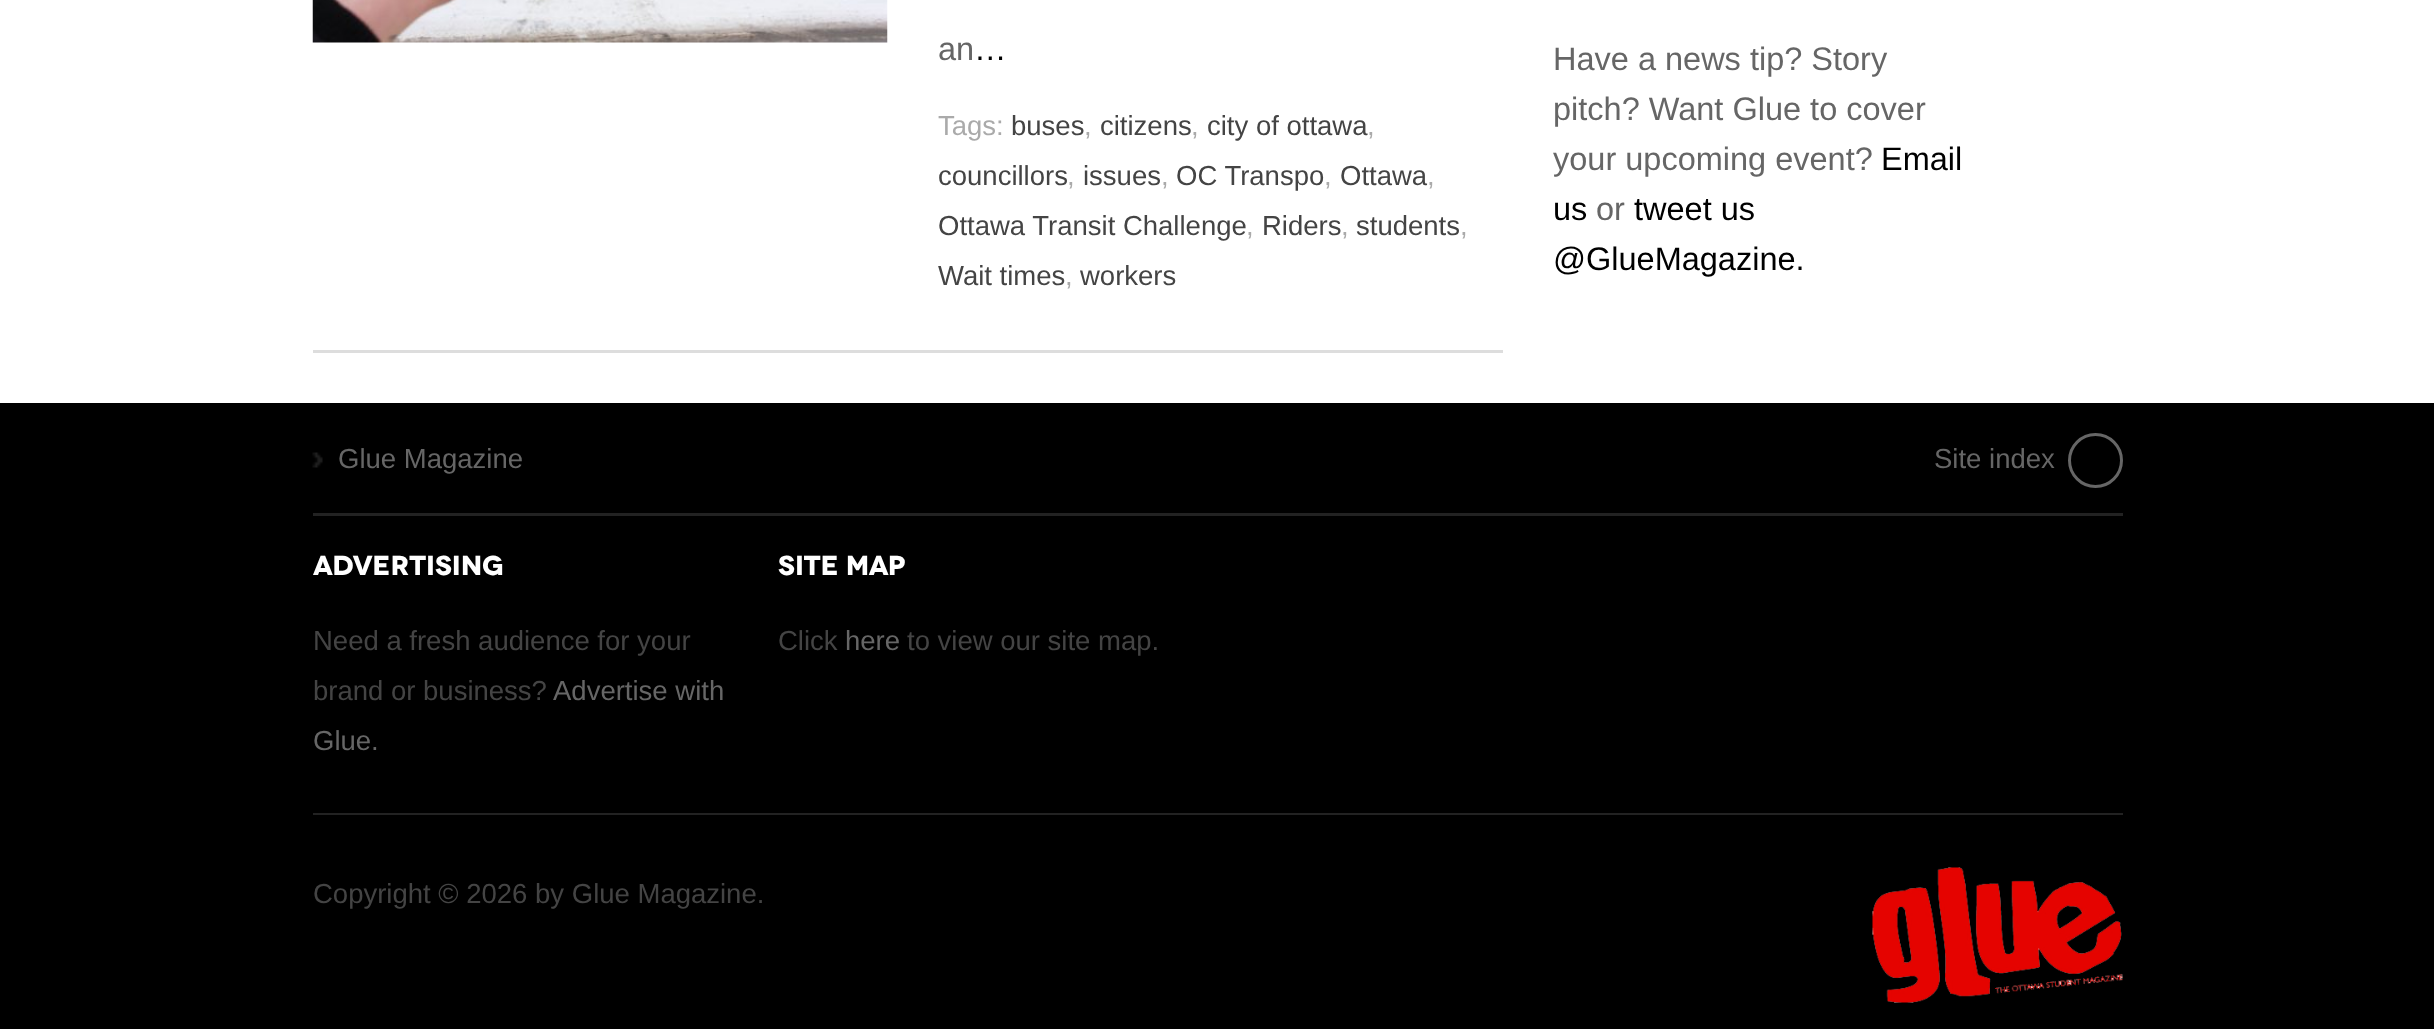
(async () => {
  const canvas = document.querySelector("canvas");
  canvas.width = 2434;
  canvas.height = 1029;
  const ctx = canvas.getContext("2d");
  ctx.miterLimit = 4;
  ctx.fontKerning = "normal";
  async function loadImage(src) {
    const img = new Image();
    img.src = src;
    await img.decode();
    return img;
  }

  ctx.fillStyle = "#ffffff";
  ctx.fillRect(0, 0, 2434, 1029);
  ctx.fillStyle = "#dddddd";
  ctx.fillRect(313, 350, 1190, 3);
  ctx.drawImage(await loadImage("img/1.png"), 312, 0, 576, 43);
  ctx.fillStyle = "#000000";
  ctx.fillRect(0, 403, 2434, 626);
  ctx.fillStyle = "#222222";
  ctx.fillRect(313, 513, 1810, 3);
  ctx.drawImage(await loadImage("img/2.png"), 312, 452, 11, 16);
  ctx.beginPath();
  ctx.arc(2095.5, 460.5, 26, 0, Math.PI * 2);
  ctx.strokeStyle = "#666666";
  ctx.lineWidth = 3;
  ctx.stroke();
  ctx.fillRect(313, 813, 1810, 2);
  ctx.drawImage(await loadImage("img/3.png"), 1872, 867, 251, 136);
  ctx.font = "32.5px Liberation Sans";
  ctx.fillStyle = "#666666";
  ctx.fillText("an", 938, 60);
  ctx.fillStyle = "#000000";
  ctx.fillText("…", 974, 60);
  ctx.font = "27.5px Liberation Sans";
  ctx.fillStyle = "#aaaaaa";
  ctx.fillText("Tags:", 938, 135);
  ctx.fillStyle = "#444444";
  ctx.fillText("buses", 1011, 135);
  ctx.fillStyle = "#aaaaaa";
  ctx.fillText(",", 1084, 135);
  ctx.fillStyle = "#444444";
  ctx.fillText("citizens", 1100, 135);
  ctx.fillStyle = "#aaaaaa";
  ctx.fillText(",", 1191, 135);
  ctx.fillStyle = "#444444";
  ctx.fillText("city of ottawa", 1207, 135);
  ctx.fillStyle = "#aaaaaa";
  ctx.fillText(",", 1367, 135);
  ctx.fillStyle = "#444444";
  ctx.fillText("councillors", 938, 185);
  ctx.fillStyle = "#aaaaaa";
  ctx.fillText(",", 1067, 185);
  ctx.fillStyle = "#444444";
  ctx.fillText("issues", 1083, 185);
  ctx.fillStyle = "#aaaaaa";
  ctx.fillText(",", 1161, 185);
  ctx.fillStyle = "#444444";
  ctx.fillText("OC Transpo", 1176, 185);
  ctx.fillStyle = "#aaaaaa";
  ctx.fillText(",", 1324, 185);
  ctx.fillStyle = "#444444";
  ctx.fillText("Ottawa", 1340, 185);
  ctx.fillStyle = "#aaaaaa";
  ctx.fillText(",", 1427, 185);
  ctx.fillStyle = "#444444";
  ctx.fillText("Ottawa Transit Challenge", 938, 235);
  ctx.fillStyle = "#aaaaaa";
  ctx.fillText(",", 1246, 235);
  ctx.fillStyle = "#444444";
  ctx.fillText("Riders", 1262, 235);
  ctx.fillStyle = "#aaaaaa";
  ctx.fillText(",", 1341, 235);
  ctx.fillStyle = "#444444";
  ctx.fillText("students", 1356, 235);
  ctx.fillStyle = "#aaaaaa";
  ctx.fillText(",", 1460, 235);
  ctx.fillStyle = "#444444";
  ctx.fillText("Wait times", 938, 285);
  ctx.fillStyle = "#aaaaaa";
  ctx.fillText(",", 1065, 285);
  ctx.fillStyle = "#444444";
  ctx.fillText("workers", 1080, 285);
  ctx.font = "32.5px Liberation Sans";
  ctx.fillStyle = "#666666";
  for (const [text, x, y] of [
    ["Have a news tip? Story", 1553, 70],
    ["pitch? Want Glue to cover", 1553, 120],
    ["your upcoming event?", 1553, 170],
  ]) {
    ctx.fillText(text, x, y);
  }
  ctx.fillStyle = "#000000";
  ctx.fillText("Email", 1881, 170);
  ctx.fillText("us", 1553, 220);
  ctx.fillStyle = "#666666";
  ctx.fillText("or", 1596, 220);
  ctx.fillStyle = "#000000";
  ctx.fillText("tweet us", 1634, 220);
  ctx.fillText("@GlueMagazine.", 1553, 270);
  ctx.font = "27.5px Liberation Sans";
  ctx.fillStyle = "#666666";
  ctx.fillText("Glue Magazine", 338, 468);
  ctx.fillText("Site index", 1934, 468);
  ctx.font = "bold 27.5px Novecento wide";
  ctx.fillStyle = "#ffffff";
  ctx.fillText("ADVERTISING", 313, 575);
  ctx.font = "27.5px Liberation Sans";
  ctx.fillStyle = "#444444";
  ctx.fillText("Need a fresh audience for your", 313, 650);
  ctx.fillText("brand or business?", 313, 700);
  ctx.fillStyle = "#666666";
  ctx.fillText("Advertise with", 553, 700);
  ctx.fillText("Glue.", 313, 750);
  ctx.font = "bold 27.5px Novecento wide";
  ctx.fillStyle = "#ffffff";
  ctx.fillText("SITE MAP", 778, 575);
  ctx.font = "27.5px Liberation Sans";
  ctx.fillStyle = "#444444";
  ctx.fillText("Click", 778, 650);
  ctx.fillStyle = "#666666";
  ctx.fillText("here", 845, 650);
  ctx.fillStyle = "#444444";
  ctx.fillText("to view our site map.", 907, 650);
  ctx.fillText("Copyright © 2026 by Glue Magazine.", 313, 903);
})();
